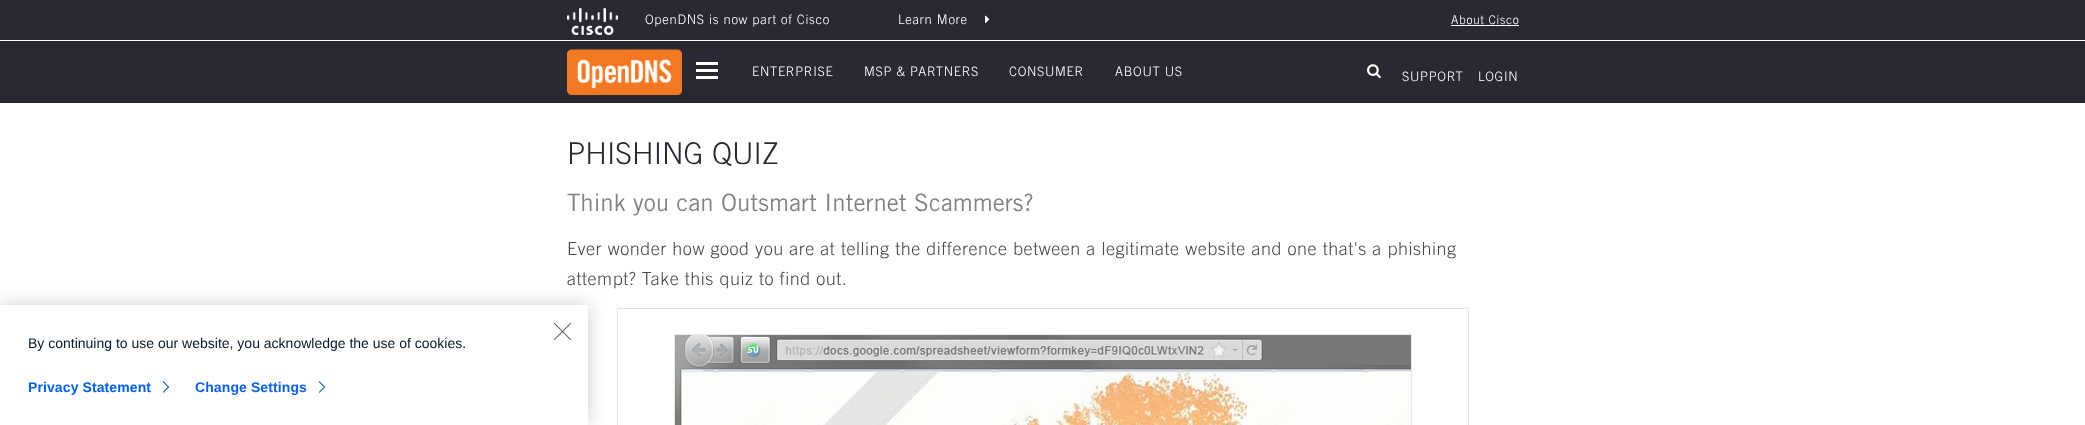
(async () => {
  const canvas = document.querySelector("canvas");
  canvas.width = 2085;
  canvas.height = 425;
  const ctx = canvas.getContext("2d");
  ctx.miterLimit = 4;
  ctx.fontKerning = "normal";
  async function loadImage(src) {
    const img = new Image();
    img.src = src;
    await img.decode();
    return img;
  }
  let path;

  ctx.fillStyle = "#ffffff";
  ctx.fillRect(0, 0, 2085, 425);
  ctx.fillStyle = "#292934";
  ctx.fillRect(0, 0, 2085, 40);
  ctx.drawImage(await loadImage("img/1.png"), 567, 8, 51, 27);
  ctx.drawImage(await loadImage("img/2.png"), 985, 15, 5, 8);
  ctx.fillStyle = "#ffffff";
  ctx.fillRect(1451, 25, 68, 1);
  ctx.fillStyle = "#292934";
  ctx.fillRect(0, 41, 2085, 62);
  ctx.drawImage(await loadImage("img/3.png"), 567, 49, 115, 46);
  for (const [x, y, w, h, color] of [
    [696, 62, 22, 3, "#ffffff"],
    [696, 76, 22, 3, "#ffffff"],
    [696, 69, 22, 3, "#ffffff"],
  ]) {
    ctx.fillStyle = color;
    ctx.fillRect(x, y, w, h);
  }
  ctx.drawImage(await loadImage("img/4.png"), 1367, 64, 14, 15);
  ctx.strokeStyle = "#e7e4df";
  ctx.strokeRect(617.5, 308.5, 851, 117);
  ctx.strokeStyle = "#ebe9e5";
  ctx.strokeRect(674.5, 334.5, 737, 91);
  ctx.drawImage(await loadImage("img/5.png"), 675, 335, 736, 90);
  ctx.save();
  path = new Path2D("M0 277H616V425H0ZM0 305H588V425H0Z");
  ctx.clip(path, "evenodd");
  ctx.fillStyle = "rgba(0, 0, 0, 0.2)";
  ctx.filter = "blur(9px)";
  ctx.beginPath();
  ctx.rect(0, 305, 588, 120);
  ctx.fill();
  ctx.filter = "none";
  ctx.restore();
  ctx.drawImage(await loadImage("img/6.png"), 553, 322, 19, 19);
  ctx.drawImage(await loadImage("img/7.png"), 162, 381, 7, 12);
  ctx.drawImage(await loadImage("img/7.png"), 318, 381, 7, 12);
  ctx.letterSpacing = "0.7px";
  ctx.font = "300 13px Trade Gothic";
  ctx.fillText("OpenDNS is now part of Cisco", 645, 24);
  ctx.fillText("Learn More", 898, 24);
  ctx.font = "300 12px Trade Gothic";
  ctx.fillText("About Cisco", 1451, 24);
  ctx.font = "300 13px Trade Gothic";
  for (const [text, x, y] of [
    ["ENTERPRISE", 752, 76],
    ["MSP & PARTNERS", 864, 76],
    ["CONSUMER", 1009, 76],
    ["ABOUT US", 1115, 76],
    ["SUPPORT", 1402, 81],
    ["LOGIN", 1478, 81],
  ]) {
    ctx.fillText(text, x, y);
  }
  ctx.letterSpacing = "0px";
  ctx.font = "300 30px Trade Gothic";
  ctx.fillStyle = "#292934";
  ctx.fillText("PHISHING QUIZ", 567, 164);
  ctx.font = "24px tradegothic";
  ctx.fillStyle = "#828282";
  ctx.fillText("Think you can Outsmart Internet Scammers?", 567, 211);
  ctx.letterSpacing = "0.53px";
  ctx.font = "300 18px Trade Gothic";
  ctx.fillStyle = "#46494e";
  ctx.fillText("Ever wonder how good you are at telling the difference between a legitimate website and one that's a phishing", 567, 255);
  ctx.fillText("attempt? Take this quiz to find out.", 567, 285);
  ctx.letterSpacing = "0px";
  ctx.font = "14px Liberation Sans";
  ctx.fillStyle = "#07182d";
  ctx.fillText("By continuing to use our website, you acknowledge the use of cookies.", 28, 348);
  ctx.letterSpacing = "0.1px";
  ctx.font = "bold 14px Liberation Sans";
  ctx.fillStyle = "#0060ff";
  ctx.fillText("Privacy Statement", 28, 392);
  ctx.fillStyle = "#0a60ff";
  ctx.fillText("Change Settings", 195, 392);
})();
